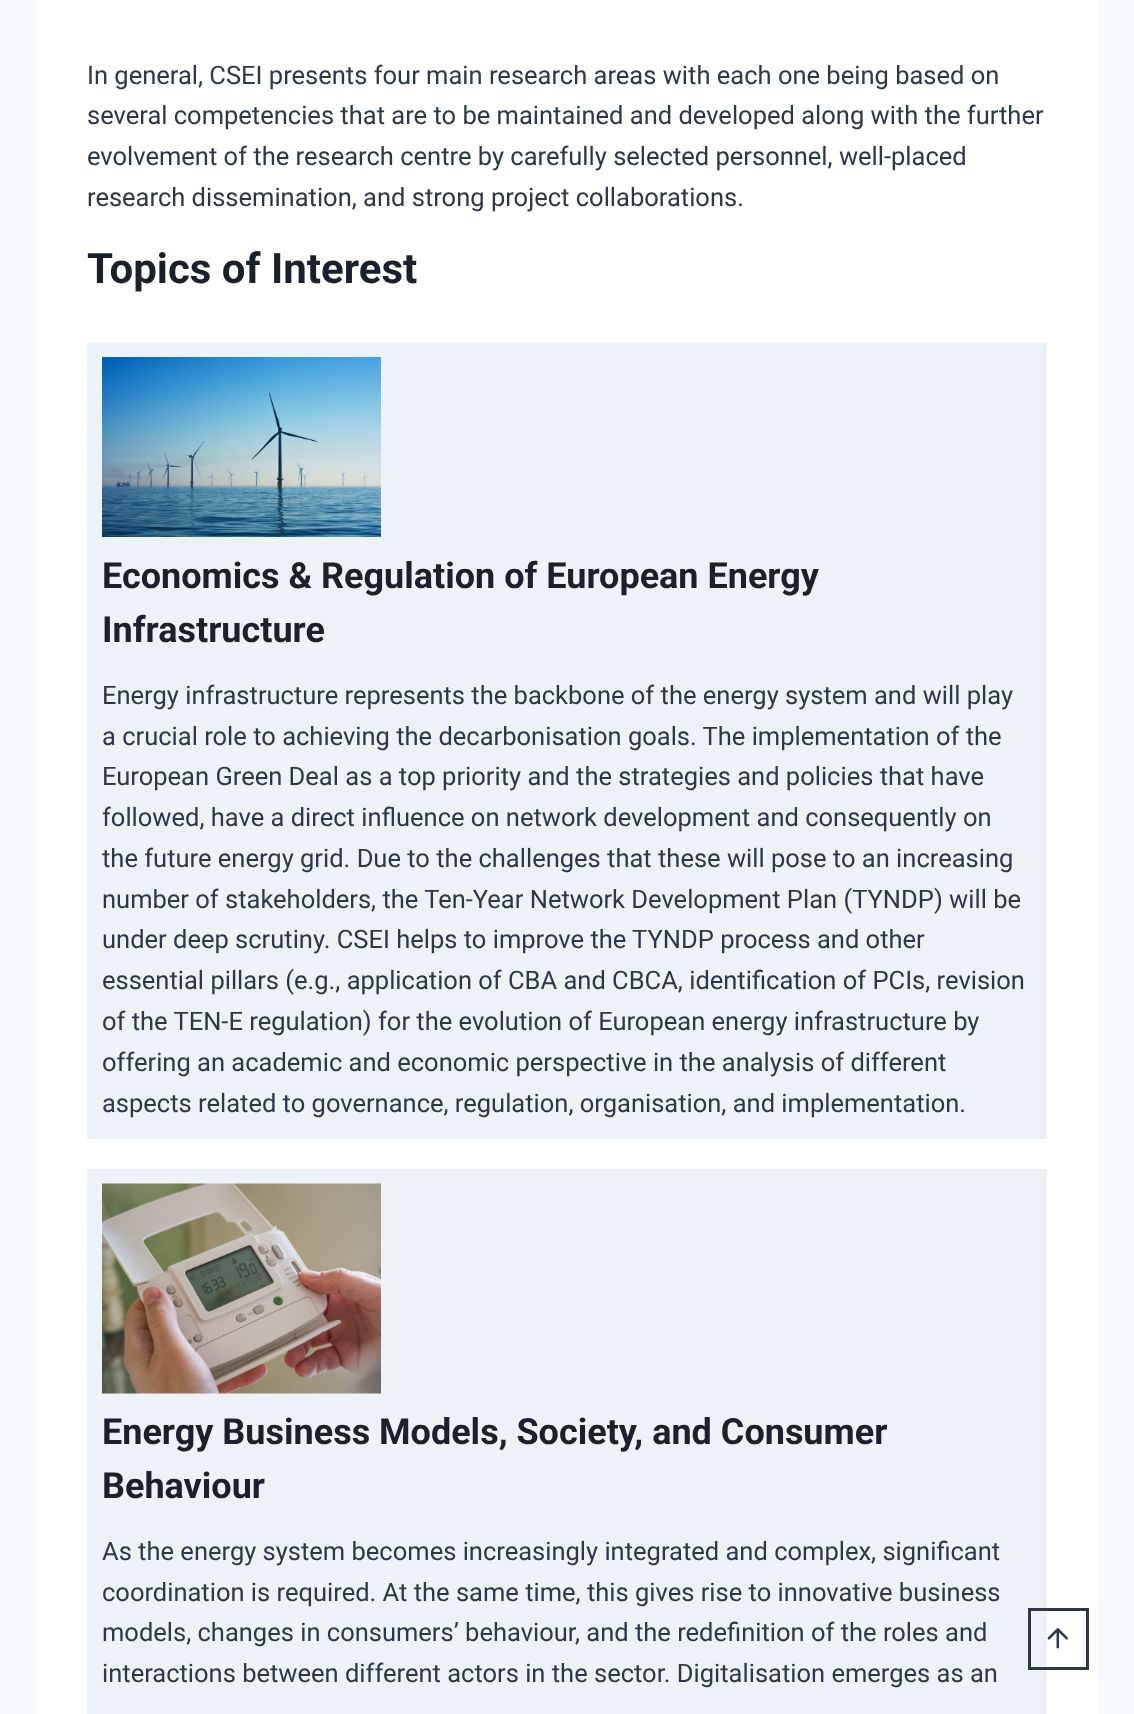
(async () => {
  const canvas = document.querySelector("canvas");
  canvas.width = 1134;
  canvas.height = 1714;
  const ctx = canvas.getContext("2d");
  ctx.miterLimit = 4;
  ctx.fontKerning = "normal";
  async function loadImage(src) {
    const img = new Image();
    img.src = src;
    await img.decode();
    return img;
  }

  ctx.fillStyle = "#f7fafc";
  ctx.fillRect(0, 0, 1134, 1714);
  ctx.fillStyle = "#ffffff";
  ctx.fillRect(36, 0, 1062, 1714);
  ctx.fillStyle = "#edf2f7";
  ctx.fillRect(87, 342, 960, 797);
  ctx.drawImage(await loadImage("img/1.png"), 102, 357, 279, 180);
  ctx.fillRect(87, 1169, 960, 545);
  ctx.drawImage(await loadImage("img/2.png"), 102, 1183, 279, 211);
  ctx.strokeStyle = "#2d3748";
  ctx.lineWidth = 3;
  ctx.strokeRect(1029.5, 1609.5, 58, 59);
  ctx.drawImage(await loadImage("img/3.png"), 1047, 1628, 21, 21);
  ctx.font = "25.5px Roboto";
  ctx.fillStyle = "#2d3748";
  for (const [text, x, y] of [
    ["In general, CSEI presents four main research areas with each one being based on", 87, 84],
    ["several competencies that are to be maintained and developed along with the further", 87, 124],
    ["evolvement of the research centre by carefully selected personnel, well-placed", 87, 165],
    ["research dissemination, and strong project collaborations.", 87, 206],
  ]) {
    ctx.fillText(text, x, y);
  }
  ctx.font = "bold 42px Roboto";
  ctx.fillStyle = "#1a202c";
  ctx.fillText("Topics of Interest", 87, 283);
  ctx.font = "bold 36px Roboto";
  ctx.fillText("Economics & Regulation of European Energy", 102, 588);
  ctx.fillText("Infrastructure", 102, 642);
  ctx.font = "25.5px Roboto";
  ctx.fillStyle = "#2d3748";
  for (const [text, x, y] of [
    ["Energy infrastructure represents the backbone of the energy system and will play", 102, 704],
    ["a crucial role to achieving the decarbonisation goals. The implementation of the", 102, 745],
    ["European Green Deal as a top priority and the strategies and policies that have", 102, 785],
    ["followed, have a direct influence on network development and consequently on", 102, 826],
    ["the future energy grid. Due to the challenges that these will pose to an increasing", 102, 867],
    ["number of stakeholders, the Ten-Year Network Development Plan (TYNDP) will be", 102, 908],
    ["under deep scrutiny. CSEI helps to improve the TYNDP process and other", 102, 948],
    ["essential pillars (e.g., application of CBA and CBCA, identification of PCIs, revision", 102, 989],
    ["of the TEN-E regulation) for the evolution of European energy infrastructure by", 102, 1030],
    ["offering an academic and economic perspective in the analysis of different", 102, 1071],
    ["aspects related to governance, regulation, organisation, and implementation.", 102, 1112],
  ]) {
    ctx.fillText(text, x, y);
  }
  ctx.font = "bold 36px Roboto";
  ctx.fillStyle = "#1a202c";
  ctx.fillText("Energy Business Models, Society, and Consumer", 102, 1444);
  ctx.fillText("Behaviour", 102, 1498);
  ctx.font = "25.5px Roboto";
  ctx.fillStyle = "#2d3748";
  for (const [text, x, y] of [
    ["As the energy system becomes increasingly integrated and complex, significant", 102, 1560],
    ["coordination is required. At the same time, this gives rise to innovative business", 102, 1601],
    ["models, changes in consumers’ behaviour, and the redefinition of the roles and", 102, 1641],
    ["interactions between different actors in the sector. Digitalisation emerges as an", 102, 1682],
  ]) {
    ctx.fillText(text, x, y);
  }
})();
